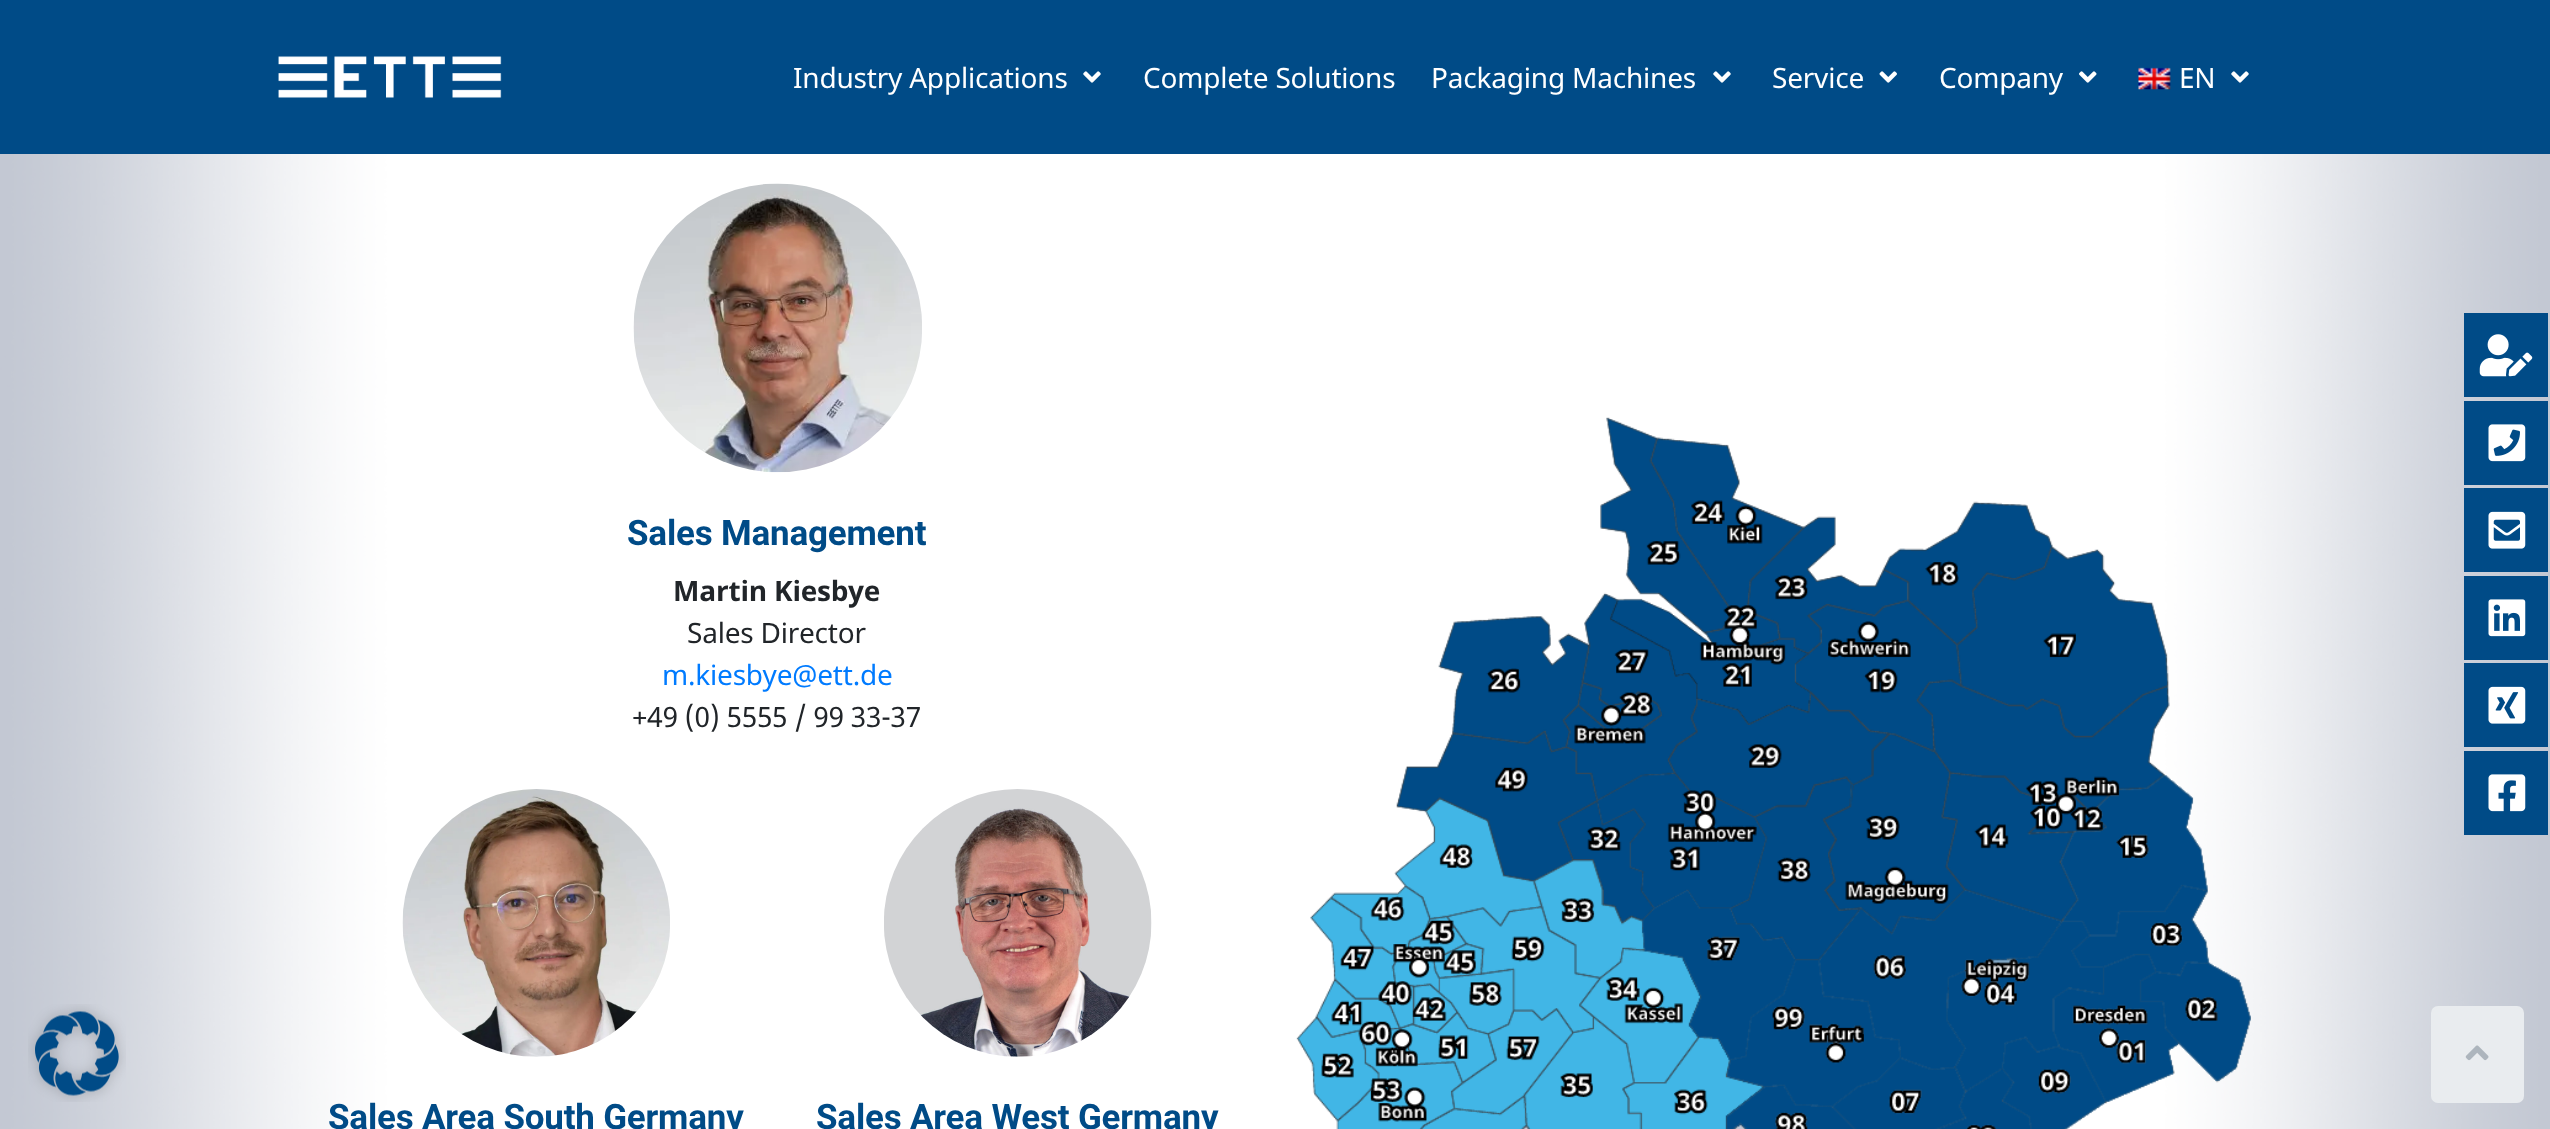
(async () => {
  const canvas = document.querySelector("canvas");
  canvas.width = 2550;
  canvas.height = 1129;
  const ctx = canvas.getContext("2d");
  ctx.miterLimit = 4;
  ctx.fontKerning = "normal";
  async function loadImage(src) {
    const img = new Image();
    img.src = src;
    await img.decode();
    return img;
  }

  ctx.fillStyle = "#ffffff";
  ctx.fillRect(0, 0, 2550, 1129);
  ctx.drawImage(await loadImage("img/1.png"), 0, 154, 2550, 975);
  ctx.fillStyle = "#004b87";
  ctx.fillRect(0, 0, 2550, 154);
  ctx.drawImage(await loadImage("img/2.png"), 278, 56, 224, 42);
  ctx.drawImage(await loadImage("img/3.png"), 1083, 71, 18, 12);
  ctx.drawImage(await loadImage("img/3.png"), 1713, 71, 18, 12);
  ctx.drawImage(await loadImage("img/4.png"), 1879, 71, 18, 12);
  ctx.drawImage(await loadImage("img/5.png"), 2079, 71, 18, 12);
  ctx.drawImage(await loadImage("img/6.png"), 2138, 67, 33, 23);
  ctx.drawImage(await loadImage("img/3.png"), 2231, 71, 18, 12);
  ctx.drawImage(await loadImage("img/7.png"), 633, 183, 289, 290);
  ctx.drawImage(await loadImage("img/8.png"), 402, 789, 268, 268);
  ctx.drawImage(await loadImage("img/9.png"), 884, 789, 268, 268);
  ctx.drawImage(await loadImage("img/10.png"), 1296, 417, 955, 712);
  ctx.fillStyle = "#e9ecef";
  ctx.beginPath();
  ctx.roundRect(2432, 1007, 91, 95, 6);
  ctx.fill();
  ctx.strokeStyle = "#e9ecef";
  ctx.lineWidth = 2;
  ctx.stroke();
  ctx.drawImage(await loadImage("img/11.png"), 2465, 1045, 24, 16);
  ctx.fillStyle = "#004b87";
  ctx.fillRect(2464, 313, 84, 84);
  ctx.drawImage(await loadImage("img/12.png"), 2479, 334, 54, 43);
  ctx.fillRect(2464, 401, 84, 84);
  ctx.drawImage(await loadImage("img/13.png"), 2488, 424, 38, 38);
  ctx.fillRect(2464, 488, 84, 84);
  ctx.drawImage(await loadImage("img/14.png"), 2488, 511, 38, 38);
  ctx.fillRect(2464, 576, 84, 84);
  ctx.drawImage(await loadImage("img/15.png"), 2488, 599, 38, 38);
  ctx.fillRect(2464, 663, 84, 84);
  ctx.drawImage(await loadImage("img/16.png"), 2488, 686, 38, 38);
  ctx.fillRect(2464, 751, 84, 84);
  ctx.drawImage(await loadImage("img/17.png"), 2488, 774, 38, 38);
  ctx.drawImage(await loadImage("img/18.png"), 28, 1004, 98, 98);
  ctx.letterSpacing = "-0.2px";
  ctx.font = "28px Noto Sans";
  ctx.fillStyle = "#ffffff";
  for (const [text, x, y] of [
    ["Industry Applications", 793, 88],
    ["Complete Solutions", 1143, 88],
    ["Packaging Machines", 1431, 88],
    ["Service", 1772, 88],
    ["Company", 1939, 88],
    ["EN", 2179, 88],
  ]) {
    ctx.fillText(text, x, y);
  }
  ctx.font = "bold 35px Roboto";
  ctx.fillStyle = "#004b87";
  ctx.fillText("Sales Management", 627, 545);
  ctx.font = "bold 28px Noto Sans";
  ctx.fillStyle = "#212529";
  ctx.fillText("Martin Kiesbye", 673, 601);
  ctx.font = "28px Noto Sans";
  ctx.fillText("Sales Director", 687, 643);
  ctx.fillStyle = "#007bff";
  ctx.fillText("m.kiesbye@ett.de", 662, 685);
  ctx.fillStyle = "#212529";
  ctx.fillText("+49 (0) 5555 / 99 33-37", 632, 727);
  ctx.font = "bold 35px Roboto";
  ctx.fillStyle = "#004b87";
  ctx.fillText("Sales Area South Germany", 328, 1129);
  ctx.fillText("Sales Area West Germany", 816, 1129);
})();
